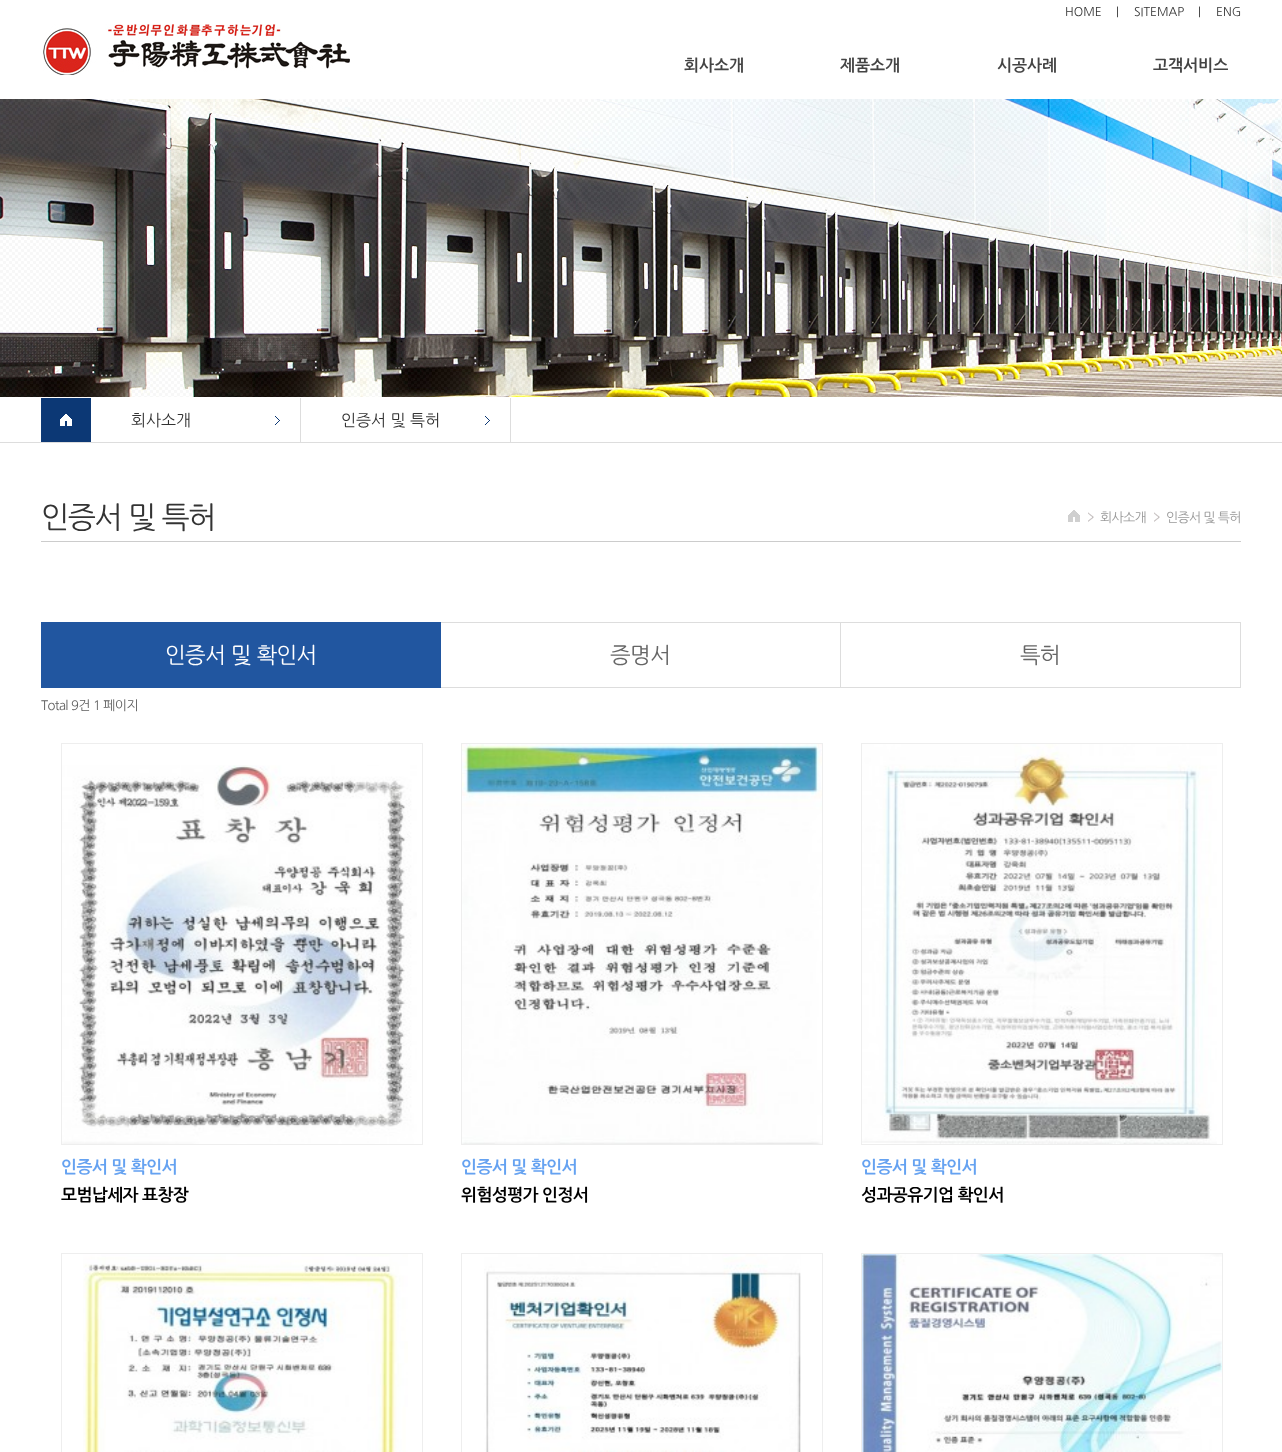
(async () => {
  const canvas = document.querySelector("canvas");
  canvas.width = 1282;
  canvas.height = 1452;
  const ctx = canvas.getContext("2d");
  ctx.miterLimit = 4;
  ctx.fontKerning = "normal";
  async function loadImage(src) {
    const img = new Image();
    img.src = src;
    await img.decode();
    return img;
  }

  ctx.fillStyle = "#ffffff";
  ctx.fillRect(0, 0, 1282, 1452);
  ctx.drawImage(await loadImage("img/1.png"), 43, 24, 307, 51);
  ctx.drawImage(await loadImage("img/2.png"), 0, 99, 1282, 298);
  ctx.fillStyle = "#dddddd";
  ctx.fillRect(0, 442, 1282, 1);
  ctx.drawImage(await loadImage("img/3.png"), 41, 398, 50, 44);
  ctx.drawImage(await loadImage("img/4.png"), 275, 416, 5, 9);
  ctx.fillRect(300, 398, 1, 44);
  ctx.drawImage(await loadImage("img/4.png"), 485, 416, 5, 9);
  ctx.fillRect(510, 398, 1, 44);
  ctx.fillStyle = "#cccccc";
  ctx.fillRect(41, 541, 1200, 1);
  ctx.drawImage(await loadImage("img/5.png"), 1068, 510, 12, 12);
  ctx.drawImage(await loadImage("img/6.png"), 1088, 512, 6, 10);
  ctx.drawImage(await loadImage("img/6.png"), 1154, 512, 6, 10);
  for (const [x, y, w, h, color] of [
    [41, 622, 400, 66, "#2156a0"],
    [441, 622, 800, 1, "#dddddd"],
    [840, 622, 1, 66, "#dddddd"],
    [441, 687, 400, 1, "#dddddd"],
    [1240, 622, 1, 66, "#dddddd"],
    [841, 687, 400, 1, "#dddddd"],
  ]) {
    ctx.fillStyle = color;
    ctx.fillRect(x, y, w, h);
  }
  ctx.strokeStyle = "#eeeeee";
  ctx.strokeRect(61.5, 743.5, 361, 401);
  ctx.drawImage(await loadImage("img/7.png"), 62, 765, 355, 379);
  ctx.strokeRect(461.5, 743.5, 361, 401);
  ctx.drawImage(await loadImage("img/8.png"), 462, 744, 360, 400);
  ctx.strokeRect(861.5, 743.5, 361, 401);
  ctx.drawImage(await loadImage("img/9.png"), 862, 744, 355, 400);
  ctx.strokeRect(61.5, 1253.5, 361, 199);
  ctx.drawImage(await loadImage("img/10.png"), 83, 1254, 325, 198);
  ctx.strokeRect(461.5, 1253.5, 361, 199);
  ctx.drawImage(await loadImage("img/11.png"), 484, 1254, 317, 198);
  ctx.strokeRect(861.5, 1253.5, 361, 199);
  ctx.drawImage(await loadImage("img/12.png"), 862, 1254, 360, 198);
  ctx.font = "12px NanumGothic";
  ctx.fillStyle = "#333333";
  for (const [text, x, y] of [
    ["HOME", 1065, 16],
    ["|", 1116, 16],
    ["SITEMAP", 1134, 16],
    ["|", 1198, 16],
    ["ENG", 1216, 16],
  ]) {
    ctx.fillText(text, x, y);
  }
  ctx.font = "bold 16px NanumGothic";
  ctx.fillStyle = "#444444";
  for (const [text, x, y] of [
    ["회사소개", 684, 71],
    ["제품소개", 840, 71],
    ["시공사례", 997, 71],
    ["고객서비스", 1153, 71],
  ]) {
    ctx.fillText(text, x, y);
  }
  ctx.font = "16px NanumGothic";
  ctx.fillStyle = "#333333";
  ctx.fillText("회사소개", 131, 426);
  ctx.fillText("인증서 및 특허", 341, 426);
  ctx.letterSpacing = "-1.5px";
  ctx.font = "30px NanumGothic";
  ctx.fillText("인증서 및 특허", 41, 528);
  ctx.letterSpacing = "-0.75px";
  ctx.font = "13px NanumGothic";
  ctx.fillStyle = "#999999";
  ctx.fillText("회사소개", 1100, 522);
  ctx.fillText("인증서 및 특허", 1166, 522);
  ctx.letterSpacing = "-0.6px";
  ctx.font = "22px NanumGothic";
  ctx.fillStyle = "#ffffff";
  ctx.fillText("인증서 및 확인서", 165, 663);
  ctx.fillStyle = "#666666";
  ctx.fillText("증명서", 610, 663);
  ctx.fillText("특허", 1020, 663);
  ctx.font = "13px NanumGothic";
  ctx.fillStyle = "#5e5e5e";
  ctx.fillText("Total 9건 1 페이지", 41, 710);
  ctx.font = "bold 17px NanumGothic";
  ctx.fillStyle = "#65a2f1";
  ctx.fillText("인증서 및 확인서", 61, 1173);
  ctx.fillStyle = "#000000";
  ctx.fillText("모범납세자 표창장", 61, 1201);
  ctx.fillStyle = "#65a2f1";
  ctx.fillText("인증서 및 확인서", 461, 1173);
  ctx.fillStyle = "#000000";
  ctx.fillText("위험성평가 인정서", 461, 1201);
  ctx.fillStyle = "#65a2f1";
  ctx.fillText("인증서 및 확인서", 861, 1173);
  ctx.fillStyle = "#000000";
  ctx.fillText("성과공유기업 확인서", 861, 1201);
})();
